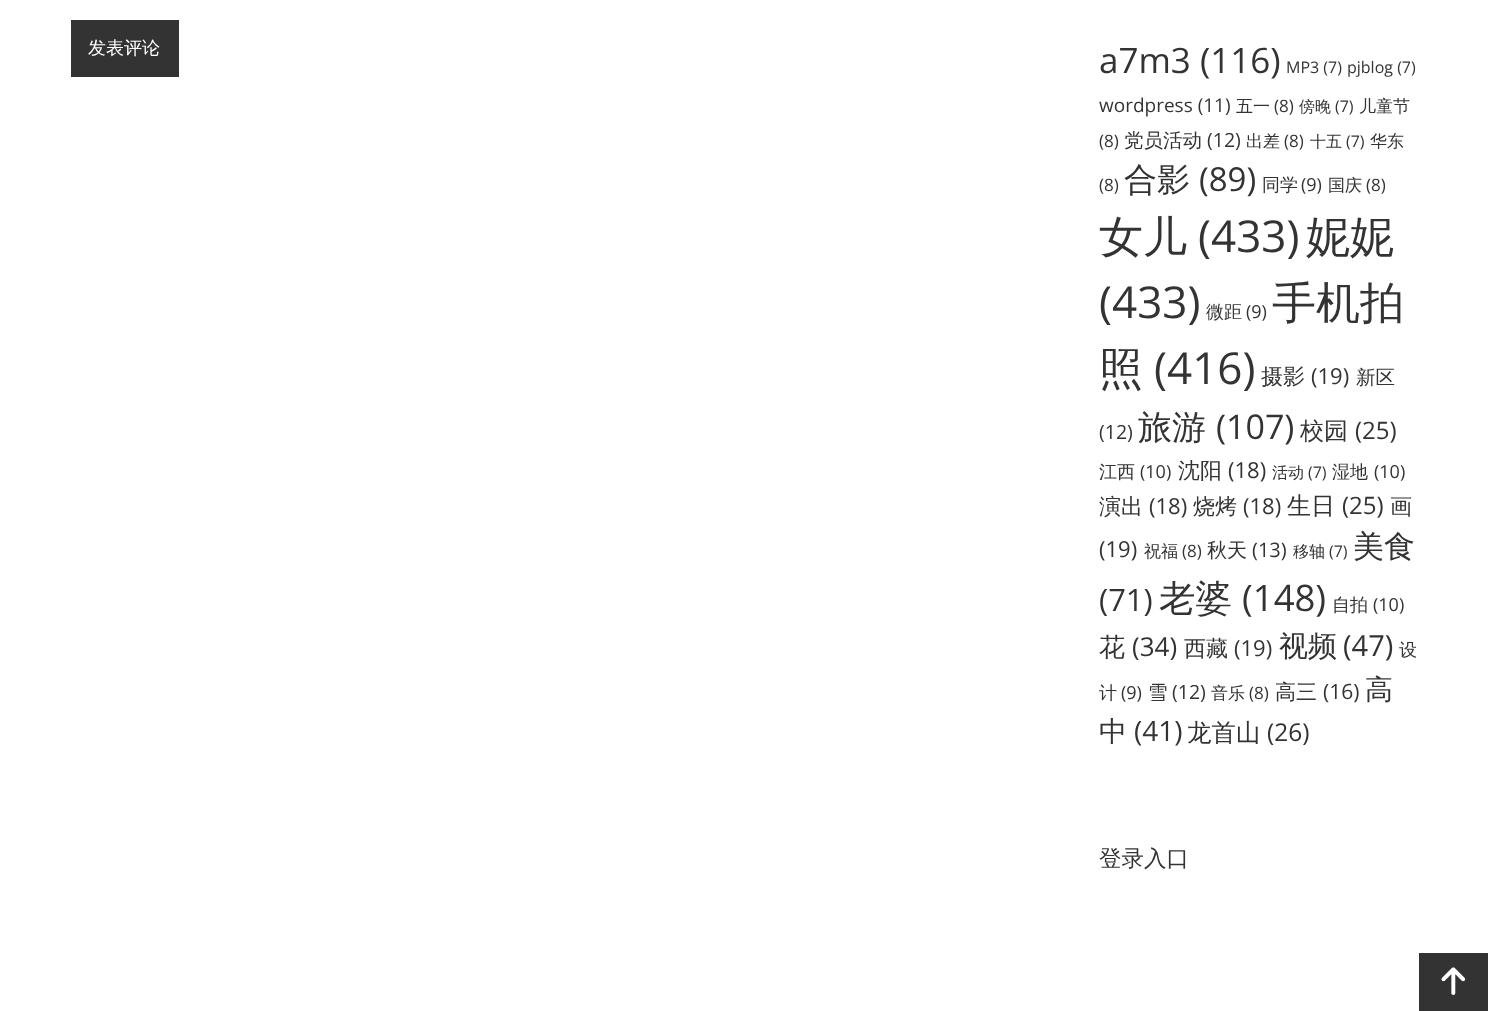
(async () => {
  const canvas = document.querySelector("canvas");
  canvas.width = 1488;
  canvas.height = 1011;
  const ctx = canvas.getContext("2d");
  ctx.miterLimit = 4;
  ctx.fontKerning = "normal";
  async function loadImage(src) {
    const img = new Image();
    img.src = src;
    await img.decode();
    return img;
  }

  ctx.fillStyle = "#ffffff";
  ctx.fillRect(0, 0, 1488, 1011);
  ctx.fillStyle = "#333333";
  ctx.fillRect(71, 20, 108, 57);
  ctx.fillRect(1419, 953, 69, 58);
  ctx.drawImage(await loadImage("img/1.png"), 1441, 967, 25, 28);
  ctx.font = "500 18px WenQuanYi Zen Hei";
  ctx.fillStyle = "#ffffff";
  ctx.fillText("发表评论", 88, 54);
  ctx.font = "35px Open Sans";
  ctx.fillStyle = "#333333";
  ctx.fillText("a7m3 (116)", 1099, 73);
  ctx.font = "16px Open Sans";
  ctx.fillText("MP3 (7)", 1286, 73);
  ctx.fillText("pjblog (7)", 1347, 73);
  ctx.font = "19px Open Sans";
  ctx.fillText("wordpress (11)", 1099, 112);
  ctx.font = "500 17px WenQuanYi Zen Hei";
  ctx.fillText("五一", 1236, 112);
  ctx.font = "17px Open Sans";
  ctx.fillText("(8)", 1274, 112);
  ctx.font = "500 16px WenQuanYi Zen Hei";
  ctx.fillText("傍晚", 1299, 112);
  ctx.font = "16px Open Sans";
  ctx.fillText("(7)", 1335, 112);
  ctx.font = "500 17px WenQuanYi Zen Hei";
  ctx.fillText("儿童节", 1359, 112);
  ctx.font = "17px Open Sans";
  ctx.fillText("(8)", 1099, 147);
  ctx.font = "500 19.5px WenQuanYi Zen Hei";
  ctx.fillText("党员活动", 1124, 147);
  ctx.font = "19.5px Open Sans";
  ctx.fillText("(12)", 1207, 147);
  ctx.font = "500 17px WenQuanYi Zen Hei";
  ctx.fillText("出差", 1246, 147);
  ctx.font = "17px Open Sans";
  ctx.fillText("(8)", 1284, 147);
  ctx.font = "500 16px WenQuanYi Zen Hei";
  ctx.fillText("十五", 1310, 147);
  ctx.font = "16px Open Sans";
  ctx.fillText("(7)", 1346, 147);
  ctx.font = "500 17px WenQuanYi Zen Hei";
  ctx.fillText("华东", 1370, 147);
  ctx.font = "17px Open Sans";
  ctx.fillText("(8)", 1099, 191);
  ctx.font = "500 33px WenQuanYi Zen Hei";
  ctx.fillText("合影", 1124, 191);
  ctx.font = "33px Open Sans";
  ctx.fillText("(89)", 1199, 191);
  ctx.font = "500 18px WenQuanYi Zen Hei";
  ctx.fillText("同学", 1262, 191);
  ctx.font = "18px Open Sans";
  ctx.fillText("(9)", 1301, 191);
  ctx.font = "500 17px WenQuanYi Zen Hei";
  ctx.fillText("国庆", 1328, 191);
  ctx.font = "17px Open Sans";
  ctx.fillText("(8)", 1366, 191);
  ctx.font = "500 44px WenQuanYi Zen Hei";
  ctx.fillText("女儿", 1099, 252);
  ctx.font = "44px Open Sans";
  ctx.fillText("(433)", 1198, 252);
  ctx.font = "500 44px WenQuanYi Zen Hei";
  ctx.fillText("妮妮", 1306, 252);
  ctx.font = "44px Open Sans";
  ctx.fillText("(433)", 1099, 318);
  ctx.font = "500 18px WenQuanYi Zen Hei";
  ctx.fillText("微距", 1206, 318);
  ctx.font = "18px Open Sans";
  ctx.fillText("(9)", 1246, 318);
  ctx.font = "500 44px WenQuanYi Zen Hei";
  ctx.fillText("手机拍", 1272, 318);
  ctx.fillText("照", 1099, 384);
  ctx.font = "44px Open Sans";
  ctx.fillText("(416)", 1154, 384);
  ctx.font = "500 22px WenQuanYi Zen Hei";
  ctx.fillText("摄影", 1261, 384);
  ctx.font = "22px Open Sans";
  ctx.fillText("(19)", 1311, 384);
  ctx.font = "500 19.5px WenQuanYi Zen Hei";
  ctx.fillText("新区", 1356, 384);
  ctx.font = "19.5px Open Sans";
  ctx.fillText("(12)", 1099, 439);
  ctx.font = "500 34px WenQuanYi Zen Hei";
  ctx.fillText("旅游", 1138, 439);
  ctx.font = "34px Open Sans";
  ctx.fillText("(107)", 1216, 439);
  ctx.font = "500 24px WenQuanYi Zen Hei";
  ctx.fillText("校园", 1300, 439);
  ctx.font = "24px Open Sans";
  ctx.fillText("(25)", 1355, 439);
  ctx.font = "500 18px WenQuanYi Zen Hei";
  ctx.fillText("江西", 1099, 478);
  ctx.font = "18px Open Sans";
  ctx.fillText("(10)", 1140, 478);
  ctx.font = "500 22px WenQuanYi Zen Hei";
  ctx.fillText("沈阳", 1178, 478);
  ctx.font = "22px Open Sans";
  ctx.fillText("(18)", 1228, 478);
  ctx.font = "500 16px WenQuanYi Zen Hei";
  ctx.fillText("活动", 1272, 478);
  ctx.font = "16px Open Sans";
  ctx.fillText("(7)", 1308, 478);
  ctx.font = "500 18px WenQuanYi Zen Hei";
  ctx.fillText("湿地", 1332, 478);
  ctx.font = "18px Open Sans";
  ctx.fillText("(10)", 1374, 478);
  ctx.font = "500 22px WenQuanYi Zen Hei";
  ctx.fillText("演出", 1099, 514);
  ctx.font = "22px Open Sans";
  ctx.fillText("(18)", 1149, 514);
  ctx.font = "500 22px WenQuanYi Zen Hei";
  ctx.fillText("烧烤", 1193, 514);
  ctx.font = "22px Open Sans";
  ctx.fillText("(18)", 1243, 514);
  ctx.font = "500 24px WenQuanYi Zen Hei";
  ctx.fillText("生日", 1287, 514);
  ctx.font = "24px Open Sans";
  ctx.fillText("(25)", 1342, 514);
  ctx.font = "500 22px WenQuanYi Zen Hei";
  ctx.fillText("画", 1390, 514);
  ctx.font = "22px Open Sans";
  ctx.fillText("(19)", 1099, 557);
  ctx.font = "500 17px WenQuanYi Zen Hei";
  ctx.fillText("祝福", 1144, 557);
  ctx.font = "17px Open Sans";
  ctx.fillText("(8)", 1182, 557);
  ctx.font = "500 20px WenQuanYi Zen Hei";
  ctx.fillText("秋天", 1207, 557);
  ctx.font = "20px Open Sans";
  ctx.fillText("(13)", 1252, 557);
  ctx.font = "500 16px WenQuanYi Zen Hei";
  ctx.fillText("移轴", 1293, 557);
  ctx.font = "16px Open Sans";
  ctx.fillText("(7)", 1329, 557);
  ctx.font = "500 31px WenQuanYi Zen Hei";
  ctx.fillText("美食", 1353, 557);
  ctx.font = "31px Open Sans";
  ctx.fillText("(71)", 1099, 611);
  ctx.font = "500 36.5px WenQuanYi Zen Hei";
  ctx.fillText("老婆", 1159, 611);
  ctx.font = "36.5px Open Sans";
  ctx.fillText("(148)", 1242, 611);
  ctx.font = "500 18px WenQuanYi Zen Hei";
  ctx.fillText("自拍", 1332, 611);
  ctx.font = "18px Open Sans";
  ctx.fillText("(10)", 1373, 611);
  ctx.font = "500 26px WenQuanYi Zen Hei";
  ctx.fillText("花", 1099, 656);
  ctx.font = "26px Open Sans";
  ctx.fillText("(34)", 1132, 656);
  ctx.font = "500 22px WenQuanYi Zen Hei";
  ctx.fillText("西藏", 1184, 656);
  ctx.font = "22px Open Sans";
  ctx.fillText("(19)", 1234, 656);
  ctx.font = "500 29px WenQuanYi Zen Hei";
  ctx.fillText("视频", 1279, 656);
  ctx.font = "29px Open Sans";
  ctx.fillText("(47)", 1343, 656);
  ctx.font = "500 18px WenQuanYi Zen Hei";
  ctx.fillText("设", 1399, 656);
  ctx.fillText("计", 1099, 699);
  ctx.font = "18px Open Sans";
  ctx.fillText("(9)", 1121, 699);
  ctx.font = "500 19.5px WenQuanYi Zen Hei";
  ctx.fillText("雪", 1148, 699);
  ctx.font = "19.5px Open Sans";
  ctx.fillText("(12)", 1172, 699);
  ctx.font = "500 17px WenQuanYi Zen Hei";
  ctx.fillText("音乐", 1211, 699);
  ctx.font = "17px Open Sans";
  ctx.fillText("(8)", 1249, 699);
  ctx.font = "500 21px WenQuanYi Zen Hei";
  ctx.fillText("高三", 1275, 699);
  ctx.font = "21px Open Sans";
  ctx.fillText("(16)", 1323, 699);
  ctx.font = "500 28px WenQuanYi Zen Hei";
  ctx.fillText("高", 1365, 699);
  ctx.fillText("中", 1099, 741);
  ctx.font = "28px Open Sans";
  ctx.fillText("(41)", 1134, 741);
  ctx.font = "500 24.5px WenQuanYi Zen Hei";
  ctx.fillText("龙首山", 1187, 741);
  ctx.font = "24.5px Open Sans";
  ctx.fillText("(26)", 1267, 741);
  ctx.font = "500 22.5px WenQuanYi Zen Hei";
  ctx.fillText("登录入口", 1099, 866);
})();
